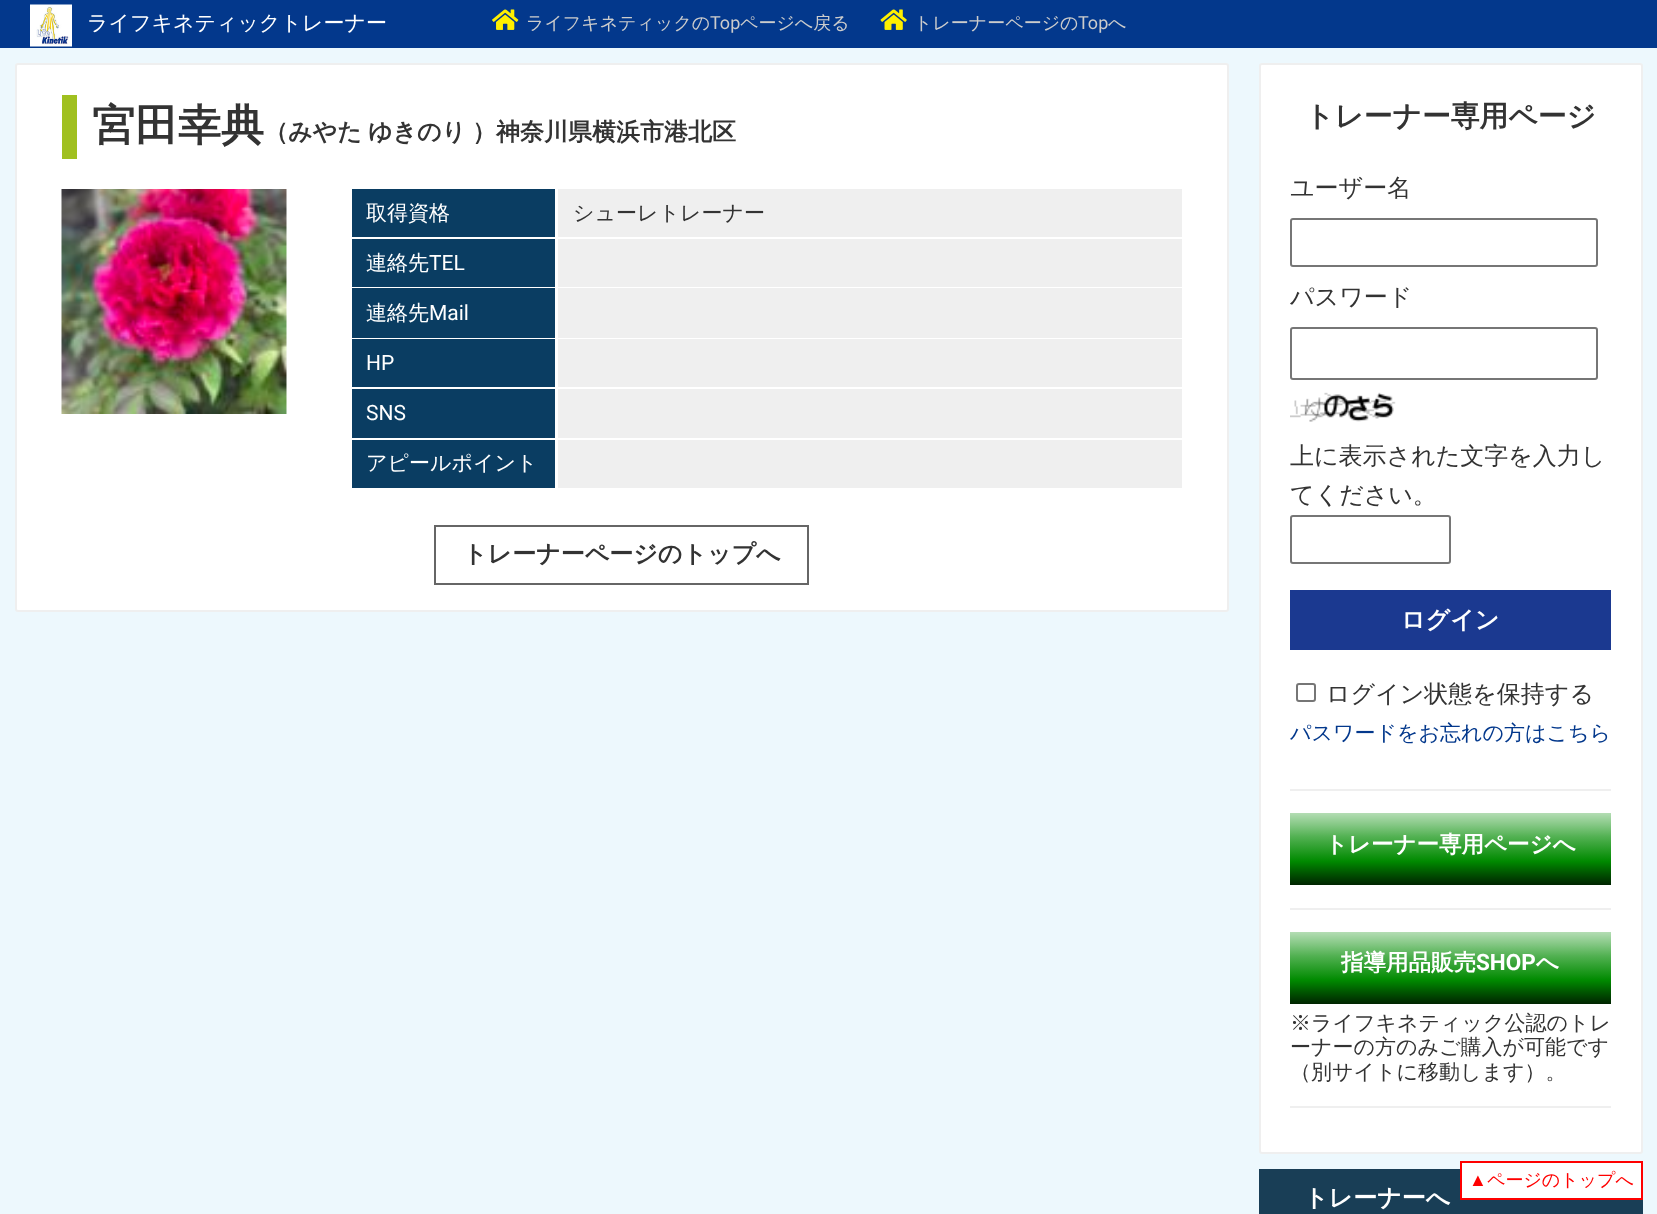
(async () => {
  const canvas = document.querySelector("canvas");
  canvas.width = 1657;
  canvas.height = 1214;
  const ctx = canvas.getContext("2d");
  ctx.miterLimit = 4;
  ctx.fontKerning = "normal";
  async function loadImage(src) {
    const img = new Image();
    img.src = src;
    await img.decode();
    return img;
  }
  let gradient;

  ctx.fillStyle = "#edf8fd";
  ctx.fillRect(0, 0, 1657, 1214);
  ctx.fillStyle = "#03388c";
  ctx.fillRect(0, 0, 1657, 48);
  ctx.drawImage(await loadImage("img/1.png"), 30, 4, 42, 43);
  ctx.drawImage(await loadImage("img/2.png"), 492, 9, 27, 21);
  ctx.drawImage(await loadImage("img/3.png"), 880, 9, 27, 21);
  ctx.fillStyle = "#ffffff";
  ctx.beginPath();
  ctx.roundRect(1260, 64, 382, 1089, 2);
  ctx.fill();
  ctx.strokeStyle = "#efefef";
  ctx.lineWidth = 2;
  ctx.stroke();
  ctx.fillStyle = "#efefef";
  ctx.fillRect(1290, 789, 321, 2);
  ctx.beginPath();
  ctx.roundRect(1291, 219, 306, 47, 2);
  ctx.strokeStyle = "#767676";
  ctx.stroke();
  ctx.beginPath();
  ctx.roundRect(1291, 328, 306, 51, 2);
  ctx.stroke();
  ctx.drawImage(await loadImage("img/4.png"), 1290, 392, 106, 30);
  ctx.beginPath();
  ctx.roundRect(1291, 516, 159, 47, 2);
  ctx.stroke();
  ctx.fillStyle = "#1b3990";
  ctx.fillRect(1290, 590, 321, 60);
  ctx.beginPath();
  ctx.roundRect(1297, 684, 18, 17, 2);
  ctx.stroke();
  ctx.fillStyle = "#efefef";
  ctx.fillRect(1290, 908, 321, 2);
  gradient = ctx.createLinearGradient(1451, 813, 1451, 885);
  gradient.addColorStop(0, "#b4ddb4");
  gradient.addColorStop(0.17, "#83c783");
  gradient.addColorStop(0.33, "#52b152");
  gradient.addColorStop(0.67, "#008a00");
  gradient.addColorStop(0.83, "#005700");
  gradient.addColorStop(1, "#002400");
  ctx.fillStyle = gradient;
  ctx.fillRect(1290, 813, 321, 72);
  ctx.fillStyle = "#efefef";
  ctx.fillRect(1290, 1106, 321, 2);
  gradient = ctx.createLinearGradient(1451, 932, 1451, 1004);
  gradient.addColorStop(0, "#b4ddb4");
  gradient.addColorStop(0.17, "#83c783");
  gradient.addColorStop(0.33, "#52b152");
  gradient.addColorStop(0.67, "#008a00");
  gradient.addColorStop(0.83, "#005700");
  gradient.addColorStop(1, "#002400");
  ctx.fillStyle = gradient;
  ctx.fillRect(1290, 932, 321, 72);
  ctx.fillStyle = "#193e56";
  ctx.fillRect(1259, 1169, 384, 45);
  ctx.fillStyle = "#ffffff";
  ctx.beginPath();
  ctx.roundRect(16, 64, 1212, 547, 2);
  ctx.fill();
  ctx.strokeStyle = "#efefef";
  ctx.stroke();
  ctx.fillStyle = "#a0c020";
  ctx.fillRect(62, 95, 15, 64);
  ctx.drawImage(await loadImage("img/5.png"), 61, 189, 226, 225);
  for (const [x, y, w, h, color] of [
    [352, 189, 203, 48, "#0a3d62"],
    [558, 189, 624, 48, "#efefef"],
    [352, 239, 203, 48, "#0a3d62"],
    [558, 239, 624, 48, "#efefef"],
    [352, 288, 203, 50, "#0a3d62"],
    [558, 288, 624, 50, "#efefef"],
    [352, 339, 203, 48, "#0a3d62"],
    [558, 339, 624, 48, "#efefef"],
    [352, 389, 203, 49, "#0a3d62"],
    [558, 389, 624, 49, "#efefef"],
    [352, 440, 203, 48, "#0a3d62"],
    [558, 440, 624, 48, "#efefef"],
  ]) {
    ctx.fillStyle = color;
    ctx.fillRect(x, y, w, h);
  }
  ctx.strokeStyle = "#666666";
  ctx.strokeRect(435, 526, 373, 58);
  ctx.fillStyle = "#ffffff";
  ctx.beginPath();
  ctx.rect(1461, 1162, 181, 37);
  ctx.fill();
  ctx.strokeStyle = "#ff0000";
  ctx.stroke();
  ctx.font = "500 21px WenQuanYi Zen Hei";
  ctx.fillText("ライフキネティックトレーナー", 87, 30);
  ctx.font = "500 18px WenQuanYi Zen Hei";
  ctx.fillStyle = "#cccccc";
  ctx.fillText("ライフキネティックの", 526, 29);
  ctx.font = "18px Roboto";
  ctx.fillText("Top", 710, 29);
  ctx.font = "500 18px WenQuanYi Zen Hei";
  ctx.fillText("ページへ戻る", 740, 29);
  ctx.fillText("トレーナーページの", 914, 29);
  ctx.font = "18px Roboto";
  ctx.fillText("Top", 1078, 29);
  ctx.font = "500 18px WenQuanYi Zen Hei";
  ctx.fillText("へ", 1108, 29);
  ctx.font = "bold 28.75px WenQuanYi Zen Hei";
  ctx.fillStyle = "#333333";
  ctx.fillText("トレーナー専用ページ", 1305, 126);
  ctx.font = "500 24px WenQuanYi Zen Hei";
  for (const [text, x, y] of [
    ["ユーザー名", 1290, 196],
    ["パスワード", 1290, 305],
    ["上に表示された文字を入力し", 1290, 464],
    ["てください。", 1290, 503],
  ]) {
    ctx.fillText(text, x, y);
  }
  ctx.font = "bold 24px WenQuanYi Zen Hei";
  ctx.fillStyle = "#ffffff";
  ctx.fillText("ログイン", 1401, 628);
  ctx.font = "500 24px WenQuanYi Zen Hei";
  ctx.fillStyle = "#333333";
  ctx.fillText("ログイン状態を保持する", 1326, 702);
  ctx.font = "500 21px WenQuanYi Zen Hei";
  ctx.fillStyle = "#03388c";
  ctx.fillText("パスワードをお忘れの方はこちら", 1290, 740);
  ctx.font = "bold 22.5px WenQuanYi Zen Hei";
  ctx.fillStyle = "#ffffff";
  ctx.fillText("トレーナー専用ページへ", 1325, 852);
  ctx.fillText("指導用品販売", 1341, 970);
  ctx.font = "bold 22.5px Roboto";
  ctx.fillText("SHOP", 1476, 970);
  ctx.font = "bold 22.5px WenQuanYi Zen Hei";
  ctx.fillText("へ", 1536, 970);
  ctx.font = "500 21px WenQuanYi Zen Hei";
  ctx.fillStyle = "#333333";
  for (const [text, x, y] of [
    ["※ライフキネティック公認のトレ", 1290, 1030],
    ["ーナーの方のみご購入が可能です", 1290, 1054],
    ["（別サイトに移動します）。", 1290, 1079],
  ]) {
    ctx.fillText(text, x, y);
  }
  ctx.font = "bold 24px WenQuanYi Zen Hei";
  ctx.fillStyle = "#ffffff";
  ctx.fillText("トレーナーへ", 1304, 1206);
  ctx.font = "bold 43px WenQuanYi Zen Hei";
  ctx.fillStyle = "#333333";
  ctx.fillText("宮田幸典", 92, 140);
  ctx.wordSpacing = "-1px";
  ctx.font = "bold 24px WenQuanYi Zen Hei";
  ctx.fillText("（みやた ゆきのり ）", 264, 140);
  ctx.wordSpacing = "0px";
  ctx.fillText("神奈川県横浜市港北区", 496, 140);
  ctx.font = "500 21px WenQuanYi Zen Hei";
  ctx.fillStyle = "#ffffff";
  ctx.fillText("取得資格", 366, 220);
  ctx.fillStyle = "#333333";
  ctx.fillText("シューレトレーナー", 573, 220);
  ctx.fillStyle = "#ffffff";
  ctx.fillText("連絡先", 366, 270);
  ctx.font = "21px Roboto";
  ctx.fillText("TEL", 429, 270);
  ctx.font = "500 21px WenQuanYi Zen Hei";
  ctx.fillText("連絡先", 366, 320);
  ctx.font = "21px Roboto";
  for (const [text, x, y] of [
    ["Mail", 429, 320],
    ["HP", 366, 370],
    ["SNS", 366, 420],
  ]) {
    ctx.fillText(text, x, y);
  }
  ctx.font = "500 21px WenQuanYi Zen Hei";
  ctx.fillText("アピールポイント", 366, 470);
  ctx.font = "bold 24px WenQuanYi Zen Hei";
  ctx.fillStyle = "#333333";
  ctx.fillText("トレーナーページのトップへ", 463, 562);
  ctx.font = "18px Liberation Sans";
  ctx.fillStyle = "#ff0000";
  ctx.fillText("▲", 1469, 1186);
  ctx.font = "500 18px WenQuanYi Zen Hei";
  ctx.fillText("ページのトップへ", 1487, 1186);
})();
